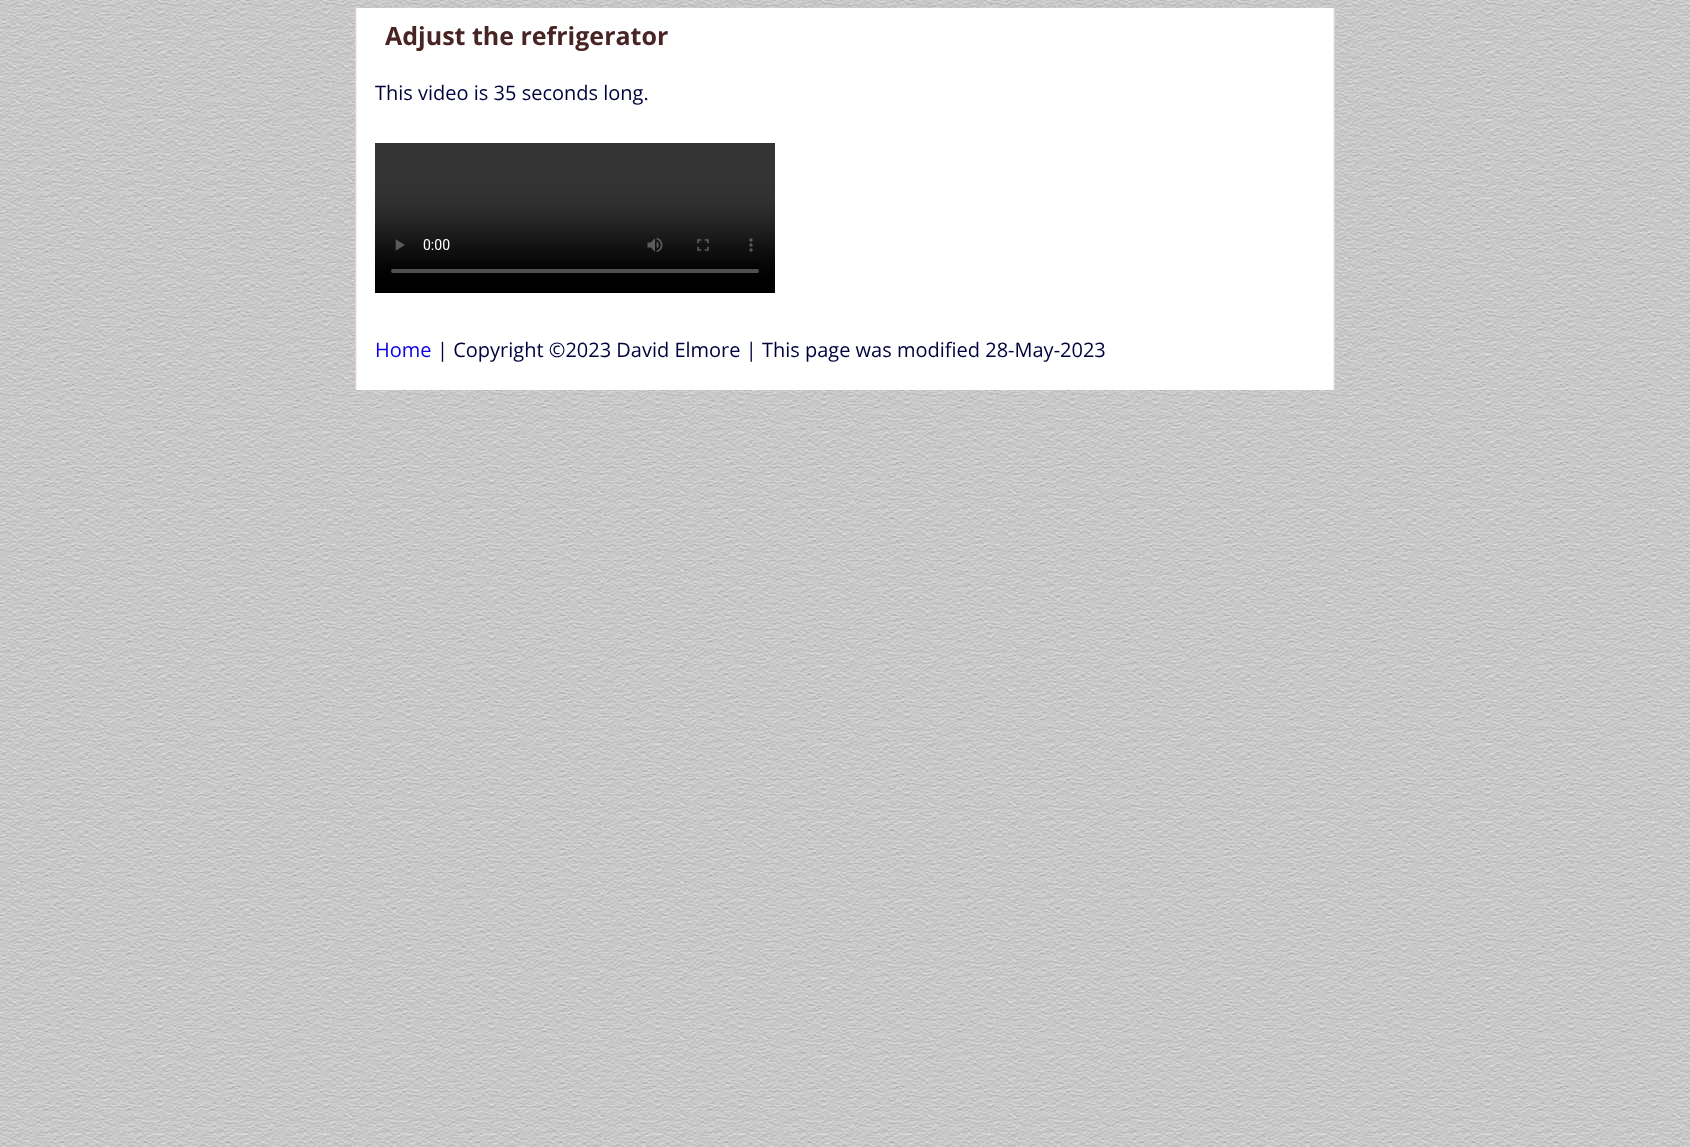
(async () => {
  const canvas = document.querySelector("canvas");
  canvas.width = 1690;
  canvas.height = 1147;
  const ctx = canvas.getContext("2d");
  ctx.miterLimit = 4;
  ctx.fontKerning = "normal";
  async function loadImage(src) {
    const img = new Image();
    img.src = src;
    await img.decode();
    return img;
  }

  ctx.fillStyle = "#ffffff";
  ctx.fillRect(0, 0, 1690, 1147);
  ctx.drawImage(await loadImage("img/1.png"), 0, 0, 1690, 1147);
  ctx.drawImage(await loadImage("img/2.png"), 355, 8, 980, 382);
  ctx.drawImage(await loadImage("img/3.png"), 375, 143, 400, 150);
  ctx.font = "bold 25px Open Sans";
  ctx.fillStyle = "#482524";
  ctx.fillText("Adjust the refrigerator", 385, 45);
  ctx.font = "20px Open Sans";
  ctx.fillStyle = "#00003c";
  ctx.fillText("This video is 35 seconds long.", 375, 100);
  ctx.fillStyle = "#0c00ec";
  ctx.fillText("Home", 375, 357);
  ctx.fillStyle = "#00003c";
  ctx.fillText("| Copyright ©2023 David Elmore | This page was modified 28-May-2023", 437, 357);
})();
